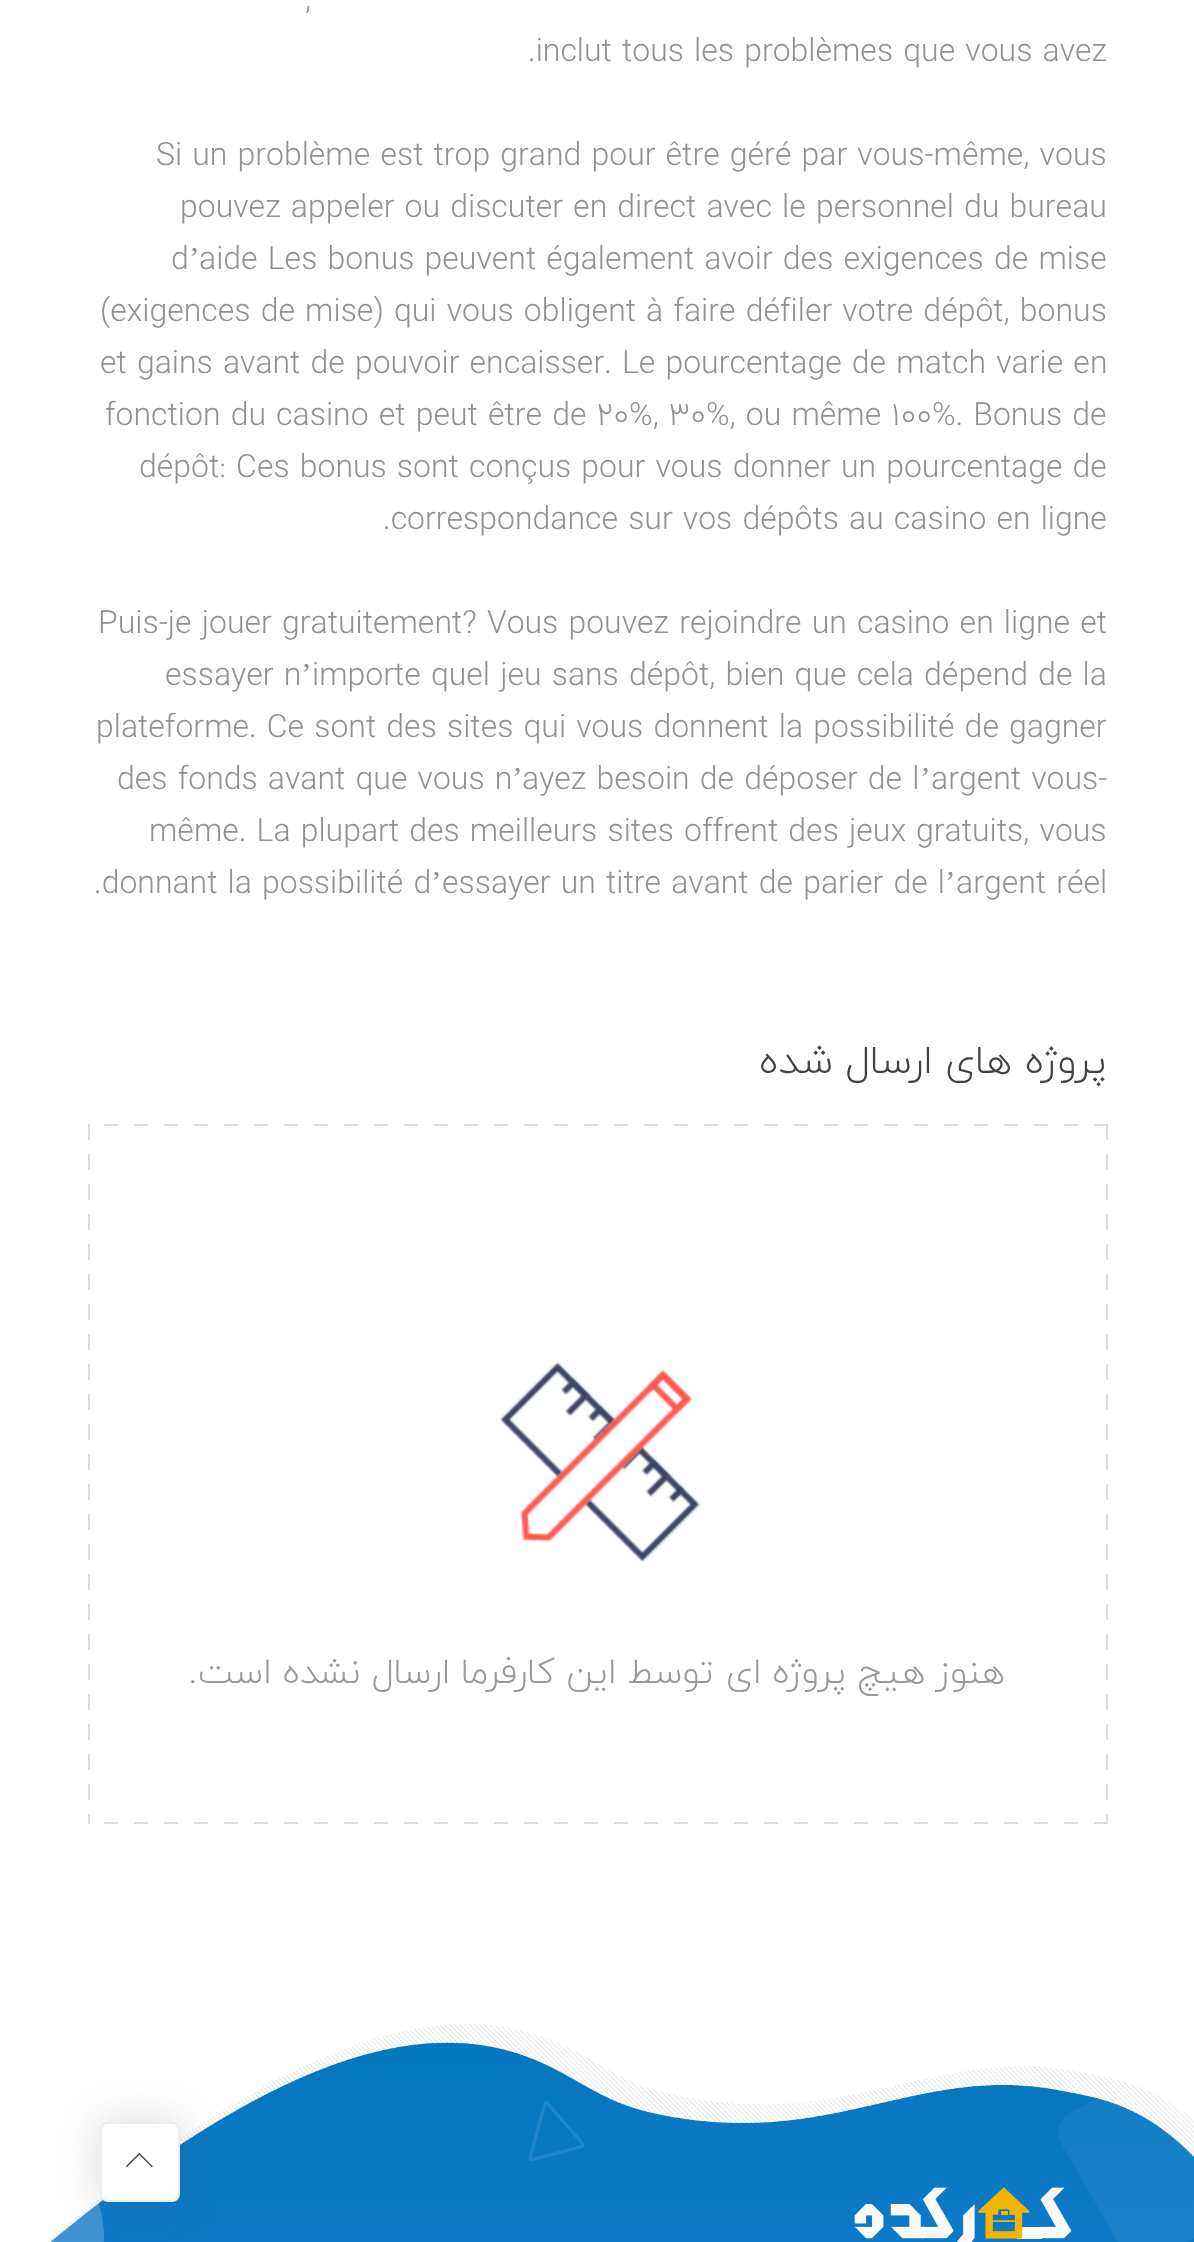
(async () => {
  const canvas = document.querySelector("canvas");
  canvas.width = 1194;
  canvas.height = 2242;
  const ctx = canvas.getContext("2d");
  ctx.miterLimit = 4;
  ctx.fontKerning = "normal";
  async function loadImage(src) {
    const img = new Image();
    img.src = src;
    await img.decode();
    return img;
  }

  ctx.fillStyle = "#ffffff";
  ctx.fillRect(0, 0, 1194, 2242);
  ctx.drawImage(await loadImage("img/1.png"), 88, 1124, 2, 700);
  ctx.drawImage(await loadImage("img/2.png"), 104, 1124, 1002, 2);
  ctx.drawImage(await loadImage("img/3.png"), 499, 1361, 202, 202);
  ctx.drawImage(await loadImage("img/2.png"), 104, 1822, 1002, 2);
  ctx.drawImage(await loadImage("img/1.png"), 1106, 1124, 2, 700);
  ctx.drawImage(await loadImage("img/4.png"), 48, 2024, 1146, 218);
  ctx.fillStyle = "rgba(68, 67, 73, 0.2)";
  ctx.filter = "blur(20px)";
  ctx.beginPath();
  ctx.roundRect(100, 2122, 80, 80, 8);
  ctx.fill();
  ctx.filter = "none";
  ctx.fillStyle = "#ffffff";
  ctx.beginPath();
  ctx.roundRect(101, 2123, 78, 78, 7);
  ctx.fill();
  ctx.strokeStyle = "#eeeeee";
  ctx.lineWidth = 2;
  ctx.stroke();
  ctx.drawImage(await loadImage("img/5.png"), 126, 2153, 27, 15);
  ctx.drawImage(await loadImage("img/6.png"), 854, 2187, 218, 55);
  ctx.font = "300 32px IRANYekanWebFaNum";
  ctx.fillStyle = "#919191";
  for (const [text, x, y] of [
    [",", 305, 9],
    [".inclut tous les problèmes que vous avez", 528, 61],
    ["Si un problème est trop grand pour être géré par vous-même, vous", 156, 165],
    ["pouvez appeler ou discuter en direct avec le personnel du bureau", 180, 217],
    ["d", 171, 269],
  ]) {
    ctx.fillText(text, x, y);
  }
  ctx.font = "32px Liberation Serif";
  ctx.fillText("’", 189, 269);
  ctx.font = "300 32px IRANYekanWebFaNum";
  for (const [text, x, y] of [
    ["aide Les bonus peuvent également avoir des exigences de mise", 199, 269],
    ["(exigences de mise) qui vous obligent à faire défiler votre dépôt, bonus", 100, 321],
    ["et gains avant de pouvoir encaisser. Le pourcentage de match varie en", 100, 373],
    ["fonction du casino et peut être de 20%, 30%, ou même 100%. Bonus de", 105, 425],
    ["dépôt: Ces bonus sont conçus pour vous donner un pourcentage de", 139, 477],
    [".correspondance sur vos dépôts au casino en ligne", 383, 529],
    ["Puis-je jouer gratuitement? Vous pouvez rejoindre un casino en ligne et", 98, 633],
    ["essayer n", 165, 685],
  ]) {
    ctx.fillText(text, x, y);
  }
  ctx.font = "32px Liberation Serif";
  ctx.fillText("’", 301, 685);
  ctx.font = "300 32px IRANYekanWebFaNum";
  for (const [text, x, y] of [
    ["importe quel jeu sans dépôt, bien que cela dépend de la", 312, 685],
    ["plateforme. Ce sont des sites qui vous donnent la possibilité de gagner", 96, 737],
    ["des fonds avant que vous n", 117, 789],
  ]) {
    ctx.fillText(text, x, y);
  }
  ctx.font = "32px Liberation Serif";
  ctx.fillText("’", 512, 789);
  ctx.font = "300 32px IRANYekanWebFaNum";
  ctx.fillText("ayez besoin de déposer de l", 522, 789);
  ctx.font = "32px Liberation Serif";
  ctx.fillText("’", 920, 789);
  ctx.font = "300 32px IRANYekanWebFaNum";
  for (const [text, x, y] of [
    ["argent vous-", 931, 789],
    ["même. La plupart des meilleurs sites offrent des jeux gratuits, vous", 149, 841],
    [".donnant la possibilité d", 94, 893],
  ]) {
    ctx.fillText(text, x, y);
  }
  ctx.font = "32px Liberation Serif";
  ctx.fillText("’", 431, 893);
  ctx.font = "300 32px IRANYekanWebFaNum";
  ctx.fillText("essayer un titre avant de parier de l", 442, 893);
  ctx.font = "32px Liberation Serif";
  ctx.fillText("’", 945, 893);
  ctx.font = "300 32px IRANYekanWebFaNum";
  ctx.fillText("argent réel", 956, 893);
  ctx.direction = "rtl";
  ctx.font = "300 40px IRANYekanWebFaNum";
  ctx.fillStyle = "#424242";
  ctx.fillText("پروژه های ارسال شده", 1107, 1073);
  ctx.font = "300 36px IRANYekanWebFaNum";
  ctx.fillStyle = "#999999";
  ctx.fillText("هنوز هیچ پروژه ای توسط این کارفرما ارسال نشده است.", 1005, 1683);
})();
